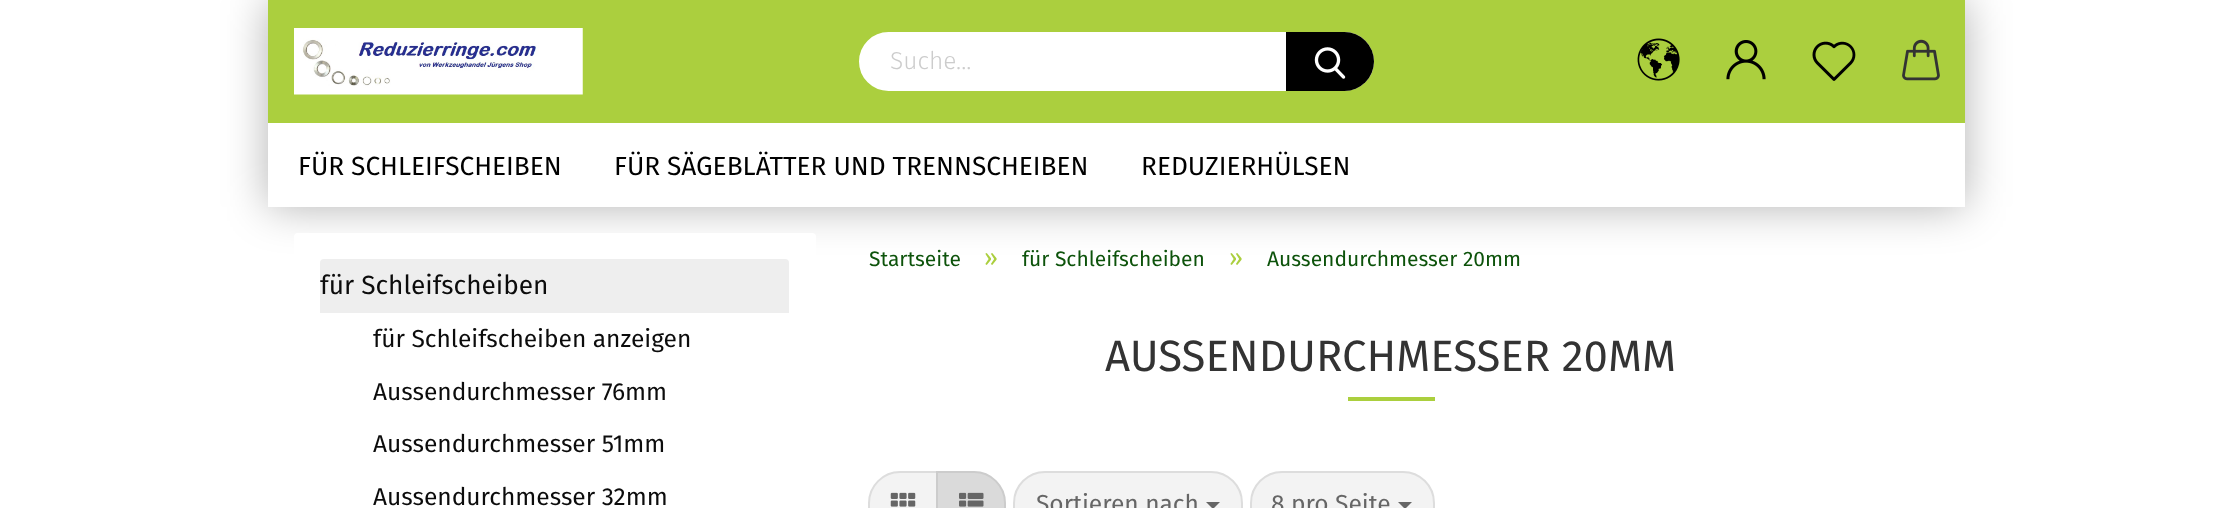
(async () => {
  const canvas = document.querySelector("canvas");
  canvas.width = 2232;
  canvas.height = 508;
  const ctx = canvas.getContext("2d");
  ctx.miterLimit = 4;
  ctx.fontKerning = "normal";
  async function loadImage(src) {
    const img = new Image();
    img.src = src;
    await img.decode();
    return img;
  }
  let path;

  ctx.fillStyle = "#ffffff";
  ctx.fillRect(0, 0, 2232, 508);
  ctx.fillStyle = "rgba(0, 0, 0, 0.3)";
  ctx.filter = "blur(22px)";
  ctx.beginPath();
  ctx.roundRect(268, 0, 1697, 207, 4);
  ctx.fill();
  ctx.filter = "none";
  ctx.fillStyle = "#abcf3e";
  ctx.fillRect(268, 0, 1697, 123);
  ctx.drawImage(await loadImage("img/1.png"), 294, 28, 289, 67);
  ctx.fillStyle = "#ffffff";
  ctx.beginPath();
  ctx.roundRect(861, 34, 511, 55, 27.5);
  ctx.fill();
  ctx.strokeStyle = "#ffffff";
  ctx.lineWidth = 4;
  ctx.stroke();
  ctx.fillStyle = "#000000";
  ctx.beginPath();
  ctx.roundRect(1286, 32, 88, 59, [0, 29.5, 29.5, 0]);
  ctx.fill();
  ctx.drawImage(await loadImage("img/2.png"), 1314, 47, 32, 32);
  ctx.drawImage(await loadImage("img/3.png"), 1637, 38, 43, 43);
  ctx.drawImage(await loadImage("img/4.png"), 1726, 40, 40, 40);
  ctx.drawImage(await loadImage("img/5.png"), 1812, 41, 44, 40);
  ctx.drawImage(await loadImage("img/6.png"), 1902, 39, 38, 42);
  ctx.fillStyle = "#ffffff";
  ctx.fillRect(268, 123, 1697, 84);
  ctx.beginPath();
  ctx.roundRect(294, 233, 522, 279, 4);
  ctx.fill();
  ctx.fillStyle = "#eeeeee";
  ctx.beginPath();
  ctx.roundRect(320, 259, 469, 54, [4, 4, 0, 0]);
  ctx.fill();
  ctx.fillStyle = "#abcf3e";
  ctx.fillRect(1348, 397, 87, 4);
  ctx.fillStyle = "#f3f3f3";
  path = new Path2D("M900 472H937V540H900C883 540 869 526 869 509V503C869 486 883 472 900 472Z");
  ctx.fill(path);
  ctx.strokeStyle = "#dddddd";
  ctx.lineWidth = 2;
  ctx.stroke(path);
  ctx.drawImage(await loadImage("img/7.png"), 890, 492, 26, 15);
  ctx.fillStyle = "#dadada";
  path = new Path2D("M937 472H974C991 472 1005 486 1005 503V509C1005 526 991 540 974 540H937Z");
  ctx.fill(path);
  ctx.strokeStyle = "#cccccc";
  ctx.stroke(path);
  ctx.drawImage(await loadImage("img/8.png"), 959, 492, 25, 15);
  ctx.fillStyle = "#f3f3f3";
  ctx.beginPath();
  ctx.roundRect(1014, 472, 228, 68, 31);
  ctx.fill();
  ctx.strokeStyle = "#dddddd";
  ctx.stroke();
  ctx.fillStyle = "#666666";
  path = new Path2D("M1206 502H1220L1213 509Z");
  ctx.fill(path);
  ctx.fillStyle = "#f3f3f3";
  ctx.beginPath();
  ctx.roundRect(1251, 472, 183, 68, 31);
  ctx.fill();
  ctx.stroke();
  ctx.fillStyle = "#666666";
  path = new Path2D("M1398 502H1412L1405 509Z");
  ctx.fill(path);
  ctx.font = "300 24.5px Fira Sans";
  ctx.fillStyle = "#cccccc";
  ctx.fillText("Suche...", 890, 69);
  ctx.font = "26.25px Fira Sans";
  ctx.fillStyle = "#000000";
  for (const [text, x, y] of [
    ["FÜR SCHLEIFSCHEIBEN", 298, 175],
    ["FÜR SÄGEBLÄTTER UND TRENNSCHEIBEN", 614, 175],
    ["REDUZIERHÜLSEN", 1141, 175],
  ]) {
    ctx.fillText(text, x, y);
  }
  ctx.fillStyle = "#0c0c0c";
  ctx.fillText("für Schleifscheiben", 320, 294);
  ctx.font = "24.5px Fira Sans";
  for (const [text, x, y] of [
    ["für Schleifscheiben anzeigen", 373, 347],
    ["Aussendurchmesser 76mm", 373, 400],
    ["Aussendurchmesser 51mm", 373, 452],
    ["Aussendurchmesser 32mm", 373, 505],
  ]) {
    ctx.fillText(text, x, y);
  }
  ctx.font = "21px Fira Sans";
  ctx.fillStyle = "#0d530b";
  ctx.fillText("Startseite", 869, 266);
  ctx.font = "24.5px Fira Sans";
  ctx.fillStyle = "#abcf3e";
  ctx.fillText("»", 984, 266);
  ctx.font = "21px Fira Sans";
  ctx.fillStyle = "#0d530b";
  ctx.fillText("für Schleifscheiben", 1022, 266);
  ctx.font = "24.5px Fira Sans";
  ctx.fillStyle = "#abcf3e";
  ctx.fillText("»", 1229, 266);
  ctx.font = "21px Fira Sans";
  ctx.fillStyle = "#0d530b";
  ctx.fillText("Aussendurchmesser 20mm", 1267, 266);
  ctx.font = "43.75px Fira Sans";
  ctx.fillStyle = "#333333";
  ctx.fillText("AUSSENDURCHMESSER 20MM", 1105, 371);
  ctx.font = "24.5px Fira Sans";
  ctx.fillStyle = "#666666";
  ctx.fillText("Sortieren nach", 1036, 512);
  ctx.fillText("8 pro Seite", 1271, 512);
})();
